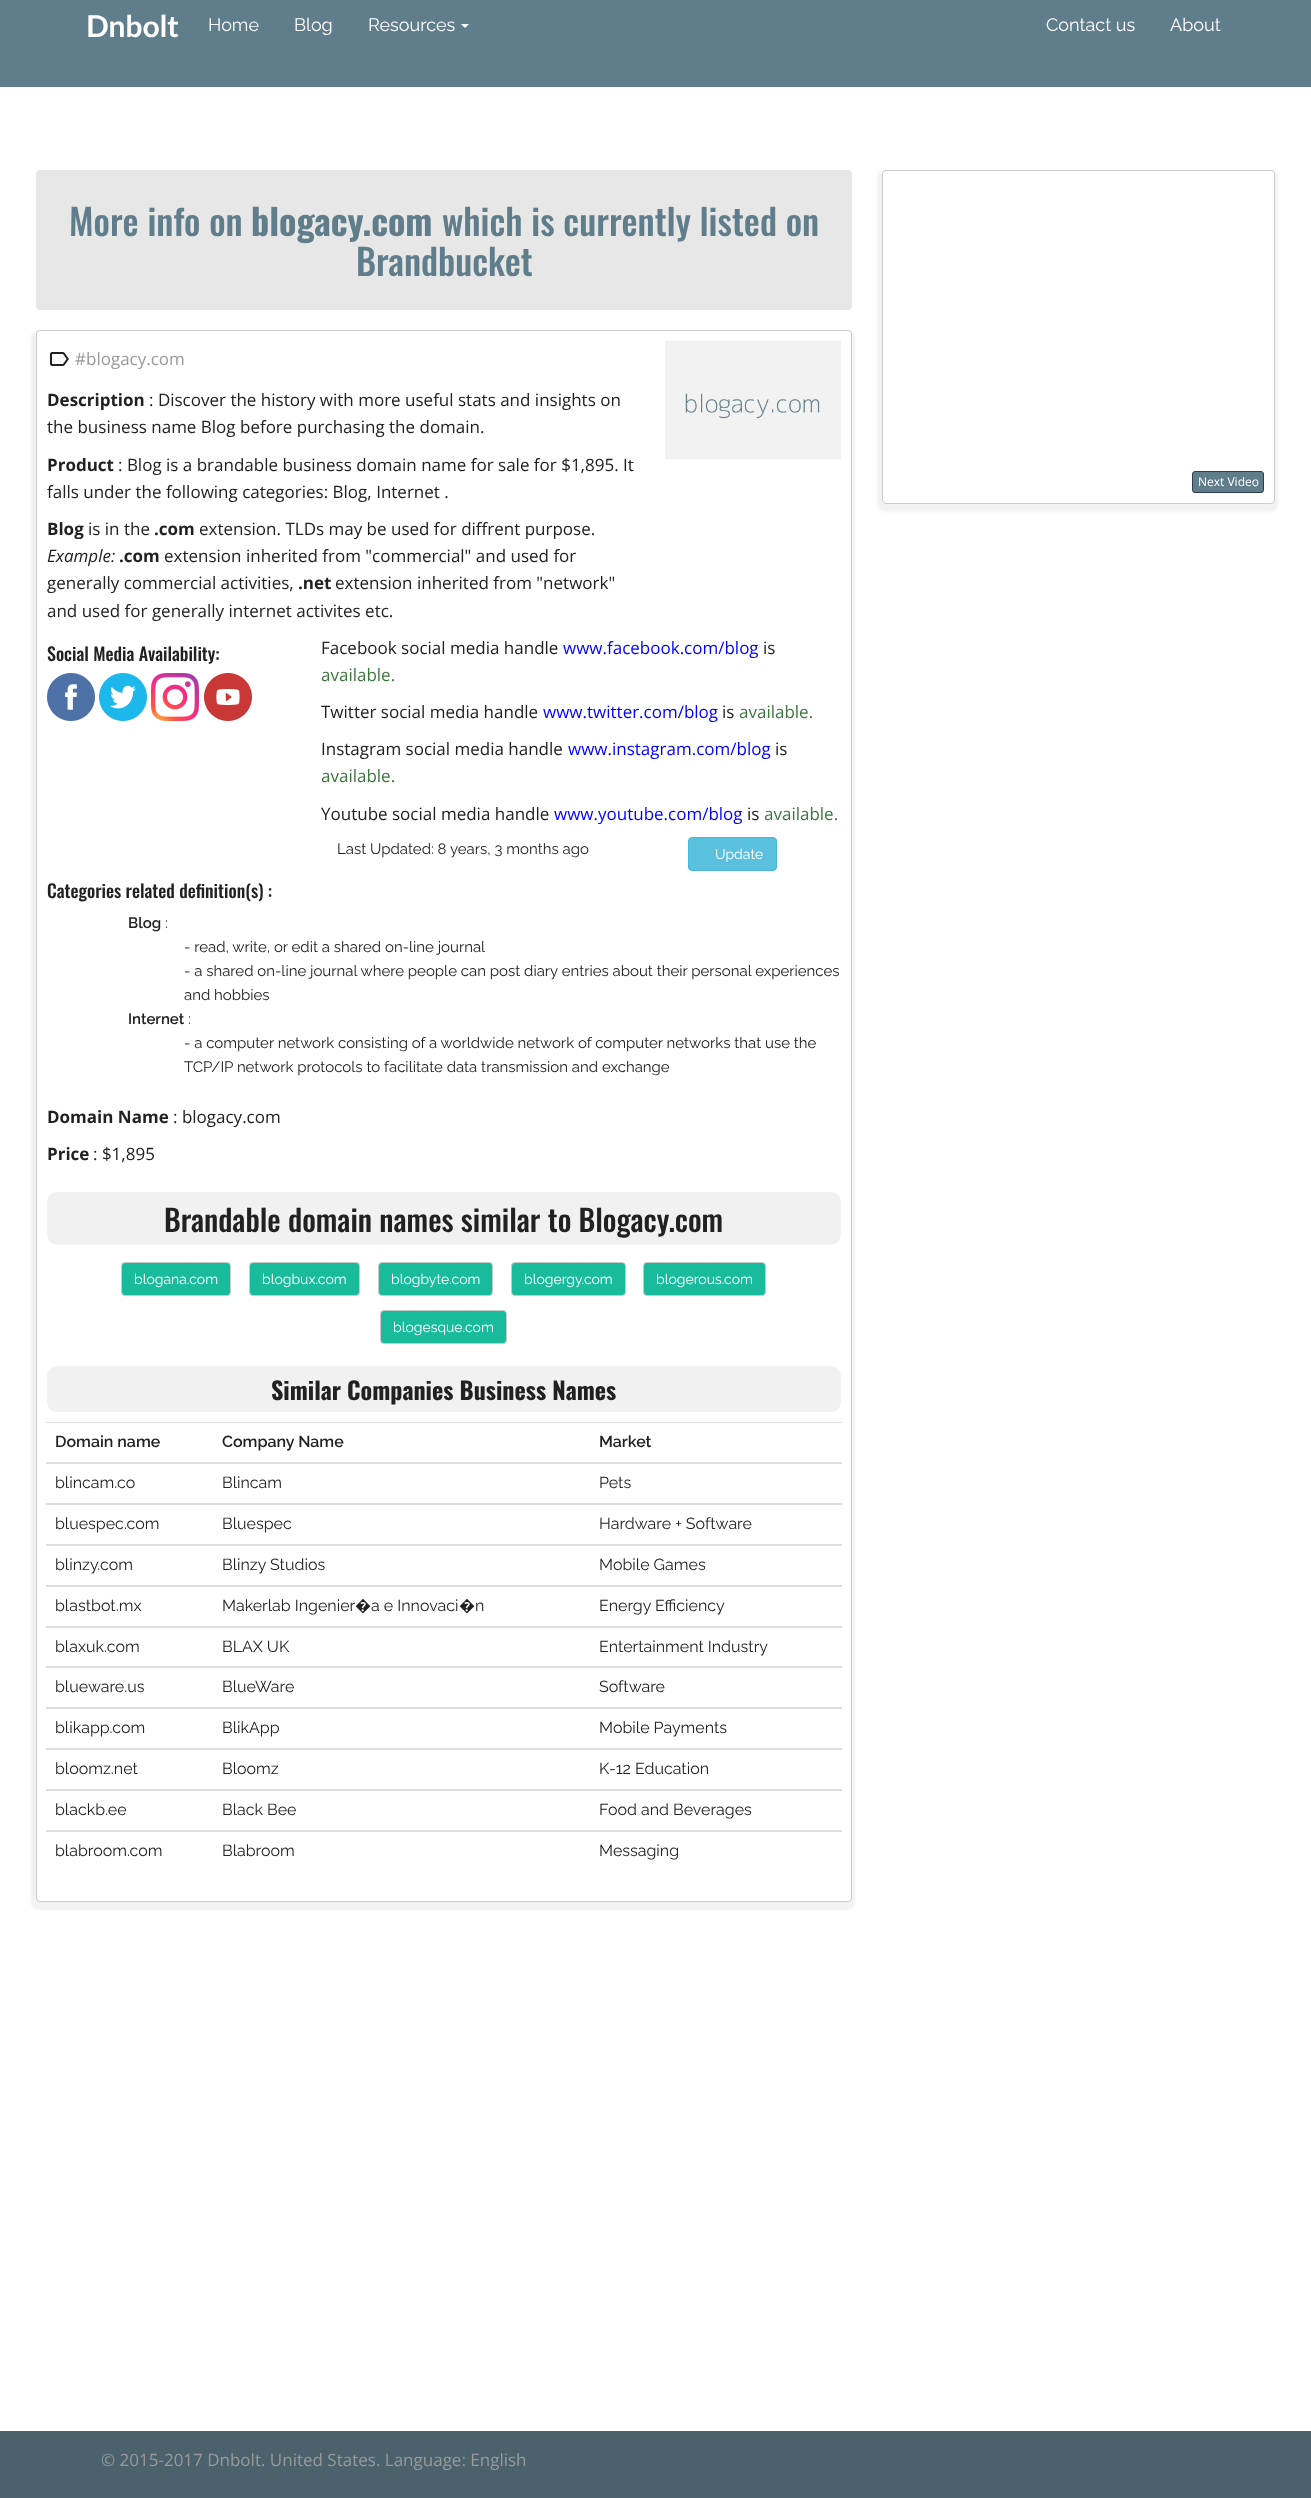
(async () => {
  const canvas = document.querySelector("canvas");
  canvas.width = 1311;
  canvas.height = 2498;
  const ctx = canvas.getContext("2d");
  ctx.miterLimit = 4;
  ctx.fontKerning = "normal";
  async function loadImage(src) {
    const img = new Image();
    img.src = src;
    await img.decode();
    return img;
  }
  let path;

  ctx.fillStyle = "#ffffff";
  ctx.fillRect(0, 0, 1311, 2498);
  ctx.fillStyle = "#607d8b";
  ctx.fillRect(0, 0, 1311, 87);
  ctx.fillStyle = "#ffffff";
  path = new Path2D("M461 24H469L465 28Z");
  ctx.fill(path);
  ctx.fillStyle = "#e7e7e7";
  ctx.beginPath();
  ctx.roundRect(36, 170, 816, 140, 4);
  ctx.fill();
  ctx.fillStyle = "rgba(0, 0, 0, 0.05)";
  ctx.filter = "blur(1px)";
  ctx.beginPath();
  ctx.roundRect(31, 330, 824, 1580, 8);
  ctx.fill();
  ctx.filter = "none";
  ctx.fillStyle = "#ffffff";
  ctx.beginPath();
  ctx.roundRect(36.5, 330.5, 815, 1571, 3.5);
  ctx.fill();
  ctx.strokeStyle = "#cccccc";
  ctx.stroke();
  ctx.drawImage(await loadImage("img/1.png"), 50, 352, 19, 14);
  ctx.drawImage(await loadImage("img/2.png"), 665, 341, 176, 118);
  ctx.drawImage(await loadImage("img/3.png"), 47, 673, 48, 48);
  ctx.drawImage(await loadImage("img/4.png"), 99, 673, 48, 48);
  ctx.drawImage(await loadImage("img/5.png"), 151, 673, 48, 48);
  ctx.drawImage(await loadImage("img/6.png"), 204, 673, 48, 48);
  ctx.fillStyle = "#5bc0de";
  ctx.beginPath();
  ctx.roundRect(688.5, 837.5, 88, 33, 3.5);
  ctx.fill();
  ctx.strokeStyle = "#46b8da";
  ctx.stroke();
  ctx.fillStyle = "#f1f1f1";
  ctx.beginPath();
  ctx.roundRect(47, 1192, 794, 53, 10);
  ctx.fill();
  ctx.fillStyle = "#18bc9c";
  ctx.beginPath();
  ctx.roundRect(121.5, 1262.5, 109, 33, 3.5);
  ctx.fill();
  ctx.strokeStyle = "#cacaca";
  ctx.stroke();
  ctx.beginPath();
  ctx.roundRect(249.5, 1262.5, 110, 33, 3.5);
  ctx.fill();
  ctx.stroke();
  ctx.beginPath();
  ctx.roundRect(378.5, 1262.5, 114, 33, 3.5);
  ctx.fill();
  ctx.stroke();
  ctx.beginPath();
  ctx.roundRect(511.5, 1262.5, 114, 33, 3.5);
  ctx.fill();
  ctx.stroke();
  ctx.beginPath();
  ctx.roundRect(643.5, 1262.5, 122, 33, 3.5);
  ctx.fill();
  ctx.stroke();
  ctx.beginPath();
  ctx.roundRect(380.5, 1310.5, 126, 33, 3.5);
  ctx.fill();
  ctx.stroke();
  ctx.fillStyle = "#f1f1f1";
  ctx.beginPath();
  ctx.roundRect(47, 1366, 794, 46, 10);
  ctx.fill();
  for (const [x, y, w, h, color] of [
    [46, 1422, 796, 1, "#dddddd"],
    [46, 1462, 796, 2, "#dddddd"],
    [46, 1503, 796, 2, "#dddddd"],
    [46, 1544, 796, 2, "#dddddd"],
    [46, 1585, 796, 2, "#dddddd"],
    [46, 1626, 796, 2, "#dddddd"],
    [46, 1666, 796, 2, "#dddddd"],
    [46, 1707, 796, 2, "#dddddd"],
    [46, 1748, 796, 2, "#dddddd"],
    [46, 1789, 796, 2, "#dddddd"],
    [46, 1830, 796, 2, "#dddddd"],
  ]) {
    ctx.fillStyle = color;
    ctx.fillRect(x, y, w, h);
  }
  ctx.fillStyle = "rgba(0, 0, 0, 0.05)";
  ctx.filter = "blur(1px)";
  ctx.beginPath();
  ctx.roundRect(877, 170, 401, 342, 8);
  ctx.fill();
  ctx.filter = "none";
  ctx.fillStyle = "#ffffff";
  ctx.beginPath();
  ctx.roundRect(882.5, 170.5, 392, 333, 3.5);
  ctx.fill();
  ctx.strokeStyle = "#cccccc";
  ctx.stroke();
  ctx.fillStyle = "#607d8b";
  ctx.beginPath();
  ctx.roundRect(1192.5, 471.5, 71, 21, 2.5);
  ctx.fill();
  ctx.strokeStyle = "#2c3e50";
  ctx.stroke();
  ctx.fillStyle = "#4b626d";
  ctx.fillRect(0, 2431, 1311, 67);
  ctx.font = "bold 30px Lato";
  ctx.fillStyle = "#ffffff";
  ctx.fillText("Dnbolt", 86, 37);
  ctx.font = "18px Raleway";
  for (const [text, x, y] of [
    ["Home", 208, 31],
    ["Blog", 294, 31],
    ["Resources", 368, 31],
    ["Contact us", 1046, 31],
    ["About", 1170, 31],
  ]) {
    ctx.fillText(text, x, y);
  }
  ctx.font = "500 36px Oswald";
  ctx.fillStyle = "#607d8b";
  ctx.fillText("More info on", 69, 236);
  ctx.font = "bold 36px Oswald";
  ctx.fillText("blogacy.com", 251, 236);
  ctx.font = "500 36px Oswald";
  ctx.fillText("which is currently listed on", 442, 236);
  ctx.fillText("Brandbucket", 356, 276);
  ctx.font = "17px Open Sans";
  ctx.fillStyle = "#999999";
  ctx.fillText("#blogacy.com", 75, 365);
  ctx.font = "bold 17px Open Sans";
  ctx.fillStyle = "#212121";
  ctx.fillText("Description", 47, 406);
  ctx.font = "17px Open Sans";
  ctx.fillText(": Discover the history with more useful stats and insights on", 149, 406);
  ctx.fillText("the business name Blog before purchasing the domain.", 47, 433);
  ctx.font = "bold 17px Open Sans";
  ctx.fillText("Product", 47, 471);
  ctx.font = "17px Open Sans";
  ctx.fillText(": Blog is a brandable business domain name for sale for $1,895. It", 118, 471);
  ctx.fillText("falls under the following categories: Blog, Internet .", 47, 498);
  ctx.font = "bold 17px Open Sans";
  ctx.fillText("Blog", 47, 535);
  ctx.font = "17px Open Sans";
  ctx.fillText("is in the", 88, 535);
  ctx.font = "bold 17px Open Sans";
  ctx.fillText(".com", 154, 535);
  ctx.font = "17px Open Sans";
  ctx.fillText("extension. TLDs may be used for diffrent purpose.", 199, 535);
  ctx.font = "italic 17px Open Sans";
  ctx.fillText("Example:", 47, 562);
  ctx.font = "bold 17px Open Sans";
  ctx.fillText(".com", 119, 562);
  ctx.font = "17px Open Sans";
  ctx.fillText("extension inherited from \"commercial\" and used for", 164, 562);
  ctx.fillText("generally commercial activities,", 47, 589);
  ctx.font = "bold 17px Open Sans";
  ctx.fillText(".net", 298, 589);
  ctx.font = "17px Open Sans";
  ctx.fillText("extension inherited from \"network\"", 335, 589);
  ctx.fillText("and used for generally internet activites etc.", 47, 617);
  ctx.font = "500 18px Oswald";
  ctx.fillText("Social Media Availability:", 47, 661);
  ctx.font = "17px Open Sans";
  ctx.fillText("Facebook social media handle", 321, 654);
  ctx.fillStyle = "#0000ff";
  ctx.fillText("www.facebook.com/blog", 563, 654);
  ctx.fillStyle = "#212121";
  ctx.fillText("is", 763, 654);
  ctx.fillStyle = "#3c763d";
  ctx.fillText("available.", 321, 681);
  ctx.fillStyle = "#212121";
  ctx.fillText("Twitter social media handle", 321, 718);
  ctx.fillStyle = "#0000ff";
  ctx.fillText("www.twitter.com/blog", 543, 718);
  ctx.fillStyle = "#212121";
  ctx.fillText("is", 722, 718);
  ctx.fillStyle = "#3c763d";
  ctx.fillText("available.", 739, 718);
  ctx.fillStyle = "#212121";
  ctx.fillText("Instagram social media handle", 321, 755);
  ctx.fillStyle = "#0000ff";
  ctx.fillText("www.instagram.com/blog", 568, 755);
  ctx.fillStyle = "#212121";
  ctx.fillText("is", 775, 755);
  ctx.fillStyle = "#3c763d";
  ctx.fillText("available.", 321, 782);
  ctx.fillStyle = "#212121";
  ctx.fillText("Youtube social media handle", 321, 820);
  ctx.fillStyle = "#0000ff";
  ctx.fillText("www.youtube.com/blog", 554, 820);
  ctx.fillStyle = "#212121";
  ctx.fillText("is", 747, 820);
  ctx.fillStyle = "#3c763d";
  ctx.fillText("available.", 764, 820);
  ctx.font = "15px Raleway";
  ctx.fillStyle = "#212121";
  ctx.fillText("Last Updated: 8 years, 3 months ago", 337, 854);
  ctx.font = "14px Raleway";
  ctx.fillStyle = "#ffffff";
  ctx.fillText("Update", 715, 859);
  ctx.font = "500 18px Oswald";
  ctx.fillStyle = "#212121";
  ctx.fillText("Categories related definition(s) :", 47, 898);
  ctx.font = "600 15px Raleway";
  ctx.fillText("Blog", 128, 928);
  ctx.font = "15px Raleway";
  for (const [text, x, y] of [
    [":", 165, 928],
    ["- read, write, or edit a shared on-line journal", 184, 952],
    ["- a shared on-line journal where people can post diary entries about their personal experiences", 184, 976],
    ["and hobbies", 184, 1000],
  ]) {
    ctx.fillText(text, x, y);
  }
  ctx.font = "600 15px Raleway";
  ctx.fillText("Internet", 128, 1024);
  ctx.font = "15px Raleway";
  for (const [text, x, y] of [
    [":", 188, 1024],
    ["- a computer network consisting of a worldwide network of computer networks that use the", 184, 1048],
    ["TCP/IP network protocols to facilitate data transmission and exchange", 184, 1072],
  ]) {
    ctx.fillText(text, x, y);
  }
  ctx.font = "bold 17px Open Sans";
  ctx.fillText("Domain Name", 47, 1123);
  ctx.font = "17px Open Sans";
  ctx.fillText(": blogacy.com", 173, 1123);
  ctx.font = "bold 17px Open Sans";
  ctx.fillText("Price", 47, 1160);
  ctx.font = "17px Open Sans";
  ctx.fillText(": $1,895", 93, 1160);
  ctx.font = "500 30px Oswald";
  ctx.fillText("Brandable domain names similar to Blogacy.com", 164, 1232);
  ctx.font = "14px Raleway";
  ctx.fillStyle = "#ffffff";
  for (const [text, x, y] of [
    ["blogana.com", 134, 1284],
    ["blogbux.com", 262, 1284],
    ["blogbyte.com", 391, 1284],
    ["blogergy.com", 524, 1284],
    ["blogerous.com", 656, 1284],
    ["blogesque.com", 393, 1332],
  ]) {
    ctx.fillText(text, x, y);
  }
  ctx.font = "bold 24px Oswald";
  ctx.fillStyle = "#212121";
  ctx.fillText("Similar Companies Business Names", 271, 1400);
  ctx.font = "600 16px Raleway";
  for (const [text, x, y] of [
    ["Domain name", 55, 1447],
    ["Company Name", 222, 1447],
    ["Market", 599, 1447],
  ]) {
    ctx.fillText(text, x, y);
  }
  ctx.font = "16px Raleway";
  for (const [text, x, y] of [
    ["blincam.co", 55, 1488],
    ["Blincam", 222, 1488],
    ["Pets", 599, 1488],
    ["bluespec.com", 55, 1529],
    ["Bluespec", 222, 1529],
    ["Hardware + Software", 599, 1529],
    ["blinzy.com", 55, 1570],
    ["Blinzy Studios", 222, 1570],
    ["Mobile Games", 599, 1570],
    ["blastbot.mx", 55, 1611],
    ["Makerlab Ingenier", 222, 1611],
  ]) {
    ctx.fillText(text, x, y);
  }
  ctx.font = "16px Noto Sans";
  ctx.fillText("�", 355, 1611);
  ctx.font = "16px Raleway";
  ctx.fillText("a e Innovaci", 371, 1611);
  ctx.font = "16px Noto Sans";
  ctx.fillText("�", 459, 1611);
  ctx.font = "16px Raleway";
  for (const [text, x, y] of [
    ["n", 475, 1611],
    ["Energy Efficiency", 599, 1611],
    ["blaxuk.com", 55, 1652],
    ["BLAX UK", 222, 1652],
    ["Entertainment Industry", 599, 1652],
    ["blueware.us", 55, 1692],
    ["BlueWare", 222, 1692],
    ["Software", 599, 1692],
    ["blikapp.com", 55, 1733],
    ["BlikApp", 222, 1733],
    ["Mobile Payments", 599, 1733],
    ["bloomz.net", 55, 1774],
    ["Bloomz", 222, 1774],
    ["K-12 Education", 599, 1774],
    ["blackb.ee", 55, 1815],
    ["Black Bee", 222, 1815],
    ["Food and Beverages", 599, 1815],
    ["blabroom.com", 55, 1856],
    ["Blabroom", 222, 1856],
    ["Messaging", 599, 1856],
  ]) {
    ctx.fillText(text, x, y);
  }
  ctx.font = "12px Open Sans";
  ctx.fillStyle = "#ffffff";
  ctx.fillText("Next Video", 1198, 486);
  ctx.font = "17px Open Sans";
  ctx.fillStyle = "#999999";
  ctx.fillText("© 2015-2017 Dnbolt. United States. Language: English", 101, 2466);
})();
